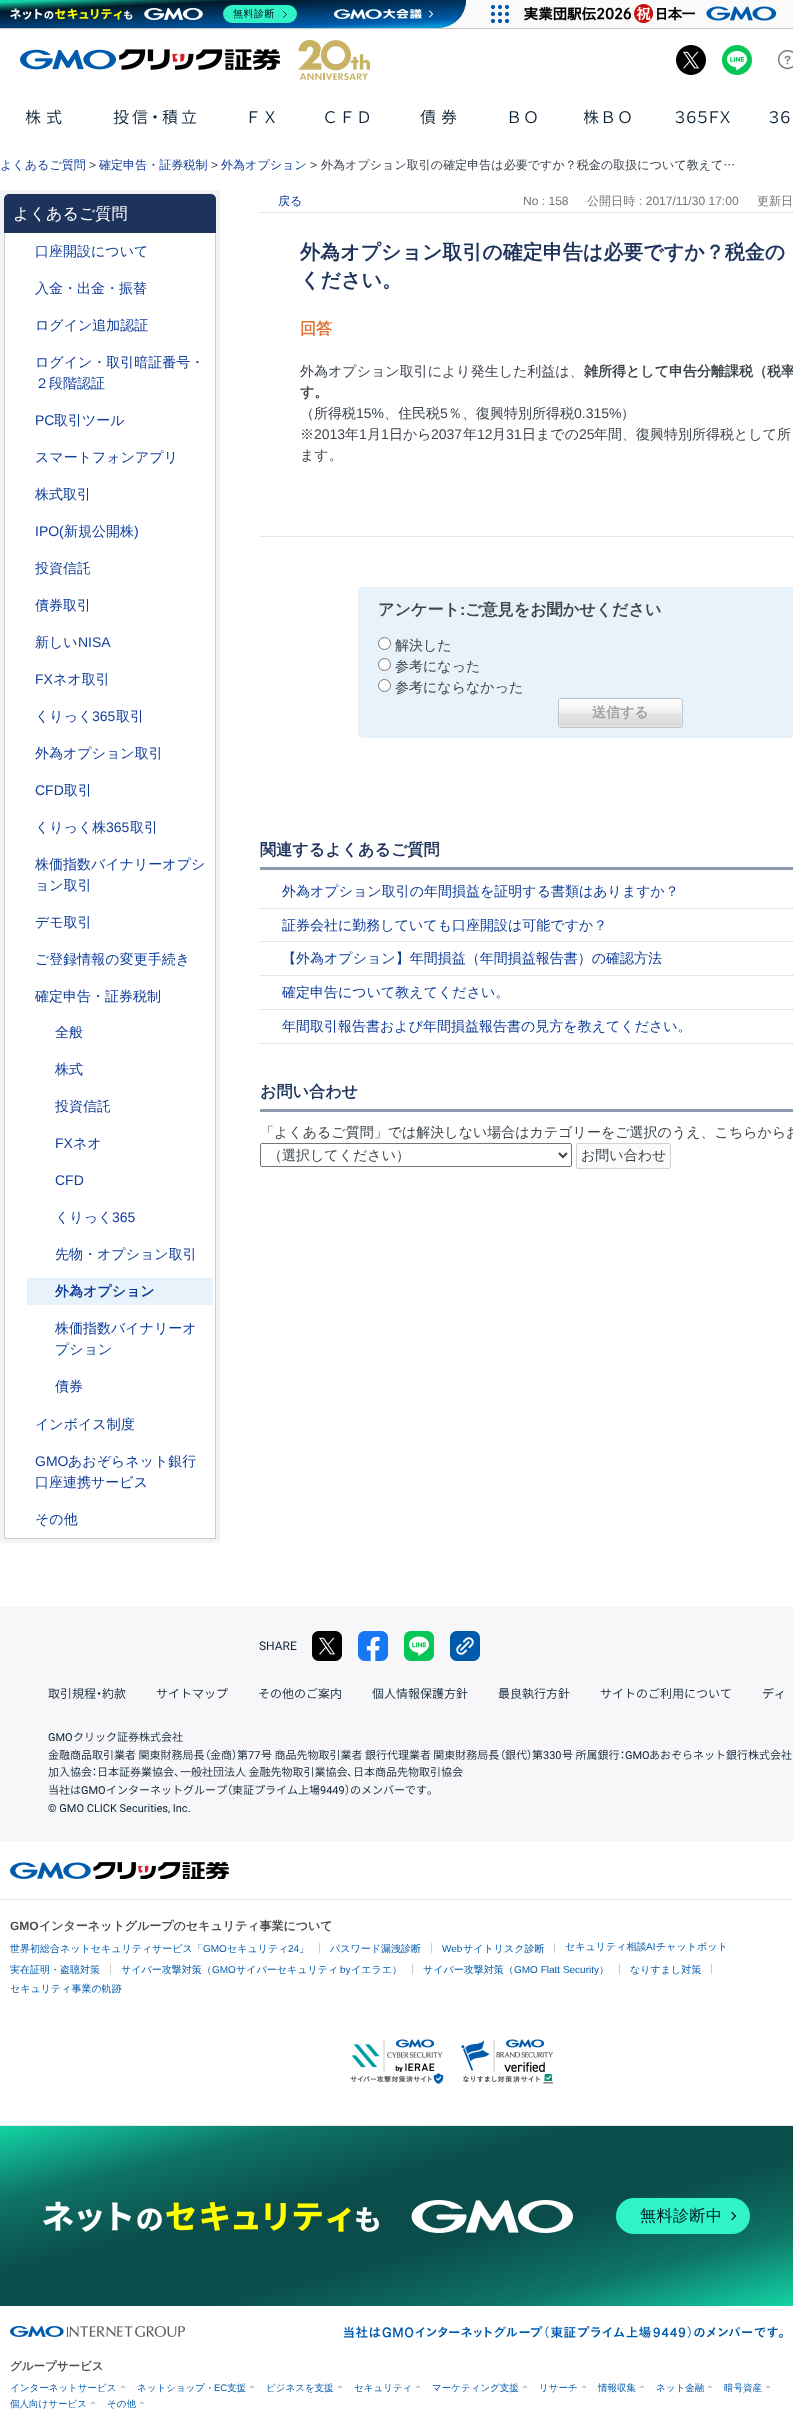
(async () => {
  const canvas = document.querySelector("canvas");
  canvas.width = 793;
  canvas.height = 2433;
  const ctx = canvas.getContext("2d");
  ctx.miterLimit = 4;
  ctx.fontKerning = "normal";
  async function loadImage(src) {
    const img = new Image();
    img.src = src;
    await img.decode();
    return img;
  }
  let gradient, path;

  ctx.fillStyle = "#ffffff";
  ctx.fillRect(0, 0, 793, 2433);
  ctx.fillStyle = "#fafafa";
  ctx.fillRect(438, 0, 355, 28);
  ctx.fillStyle = "#c8c8c8";
  ctx.fillRect(0, 28, 793, 1);
  gradient = ctx.createLinearGradient(232, -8, 234, 36);
  gradient.addColorStop(0, "#13d4a5");
  gradient.addColorStop(0.34, "#0e7365");
  gradient.addColorStop(0.79, "#0b4d4b");
  ctx.fillStyle = gradient;
  ctx.beginPath();
  ctx.roundRect(0, 0, 466, 28, [0, 0, 28, 0]);
  ctx.fill();
  gradient = ctx.createLinearGradient(234, 36, 232, -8);
  gradient.addColorStop(0, "#019cd9");
  gradient.addColorStop(0.16, "#005bac");
  gradient.addColorStop(0.79, "#02192a");
  gradient.addColorStop(1, "rgba(2, 25, 42, 0)");
  ctx.fillStyle = gradient;
  ctx.beginPath();
  ctx.roundRect(0, 0, 466, 28, [0, 0, 28, 0]);
  ctx.fill();
  ctx.drawImage(await loadImage("img/1.png"), 10, 8, 193, 12);
  ctx.fillStyle = "#30f4c5";
  ctx.beginPath();
  ctx.roundRect(223, 5, 74, 18, 9);
  ctx.fill();
  path = new Path2D("M283.5 11.5L286.5 14.5L283.5 17.5");
  ctx.strokeStyle = "#021725";
  ctx.lineWidth = 0.9;
  ctx.lineCap = "round";
  ctx.lineJoin = "round";
  ctx.stroke(path);
  ctx.drawImage(await loadImage("img/2.png"), 334, 9, 99, 10);
  ctx.drawImage(await loadImage("img/3.png"), 490, 4, 20, 20);
  ctx.drawImage(await loadImage("img/4.png"), 524, 4, 253, 19);
  ctx.drawImage(await loadImage("img/5.png"), 298, 40, 72, 40);
  ctx.drawImage(await loadImage("img/6.png"), 20, 49, 260, 21);
  ctx.drawImage(await loadImage("img/7.png"), 676, 45, 30, 30);
  ctx.drawImage(await loadImage("img/8.png"), 722, 45, 30, 30);
  ctx.drawImage(await loadImage("img/9.png"), 777, 49, 16, 21);
  ctx.fillStyle = "#f3f3f4";
  ctx.fillRect(0, 190, 220, 1353);
  ctx.fillStyle = "#ffffff";
  ctx.fillRect(4, 194, 212, 1344);
  ctx.fillStyle = "#1e335c";
  ctx.beginPath();
  ctx.roundRect(4, 194, 212, 39, [5, 5, 0, 0]);
  ctx.fill();
  for (const [x, y, w, h, color] of [
    [215, 233, 1, 1306, "#c7ccd6"],
    [4, 1538, 212, 1, "#c7ccd6"],
    [4, 233, 1, 1306, "#c7ccd6"],
    [27, 1278, 186, 27, "#e8f2fb"],
  ]) {
    ctx.fillStyle = color;
    ctx.fillRect(x, y, w, h);
  }
  path = new Path2D("M260 212.5H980");
  ctx.strokeStyle = "#cccccc";
  ctx.lineWidth = 1;
  ctx.lineCap = "butt";
  ctx.lineJoin = "miter";
  ctx.setLineDash([1, 1]);
  ctx.stroke(path);
  path = new Path2D("M260 536.5H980");
  ctx.stroke(path);
  ctx.beginPath();
  ctx.roundRect(358, 587, 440, 151, 5);
  ctx.fill();
  ctx.fillStyle = "#ffffff";
  ctx.beginPath();
  ctx.arc(384.5, 643.5, 6, 0, Math.PI * 2);
  ctx.fill();
  ctx.strokeStyle = "#767676";
  ctx.setLineDash([]);
  ctx.stroke();
  ctx.beginPath();
  ctx.arc(384.5, 664.5, 6, 0, Math.PI * 2);
  ctx.fill();
  ctx.stroke();
  ctx.beginPath();
  ctx.arc(384.5, 685.5, 6, 0, Math.PI * 2);
  ctx.fill();
  ctx.stroke();
  ctx.drawImage(await loadImage("img/10.png"), 558, 698, 125, 30);
  ctx.fillStyle = "#8e99ad";
  ctx.fillRect(260, 867, 533, 3);
  path = new Path2D("M260 908.5H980");
  ctx.strokeStyle = "#cccccc";
  ctx.setLineDash([1, 1]);
  ctx.stroke(path);
  path = new Path2D("M260 941.5H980");
  ctx.stroke(path);
  path = new Path2D("M260 975.5H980");
  ctx.stroke(path);
  path = new Path2D("M260 1009.5H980");
  ctx.stroke(path);
  path = new Path2D("M260 1043.5H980");
  ctx.stroke(path);
  ctx.fillRect(260, 1109, 533, 3);
  ctx.beginPath();
  ctx.roundRect(260.5, 1143.5, 311, 23, 1.5);
  ctx.strokeStyle = "#767676";
  ctx.setLineDash([]);
  ctx.stroke();
  path = new Path2D("M559 1153L563 1157L567 1153");
  ctx.strokeStyle = "#3d444c";
  ctx.lineWidth = 2;
  ctx.stroke(path);
  ctx.fillStyle = "#fafafa";
  ctx.beginPath();
  ctx.roundRect(576.5, 1143.5, 94, 25, 1.5);
  ctx.fill();
  ctx.strokeStyle = "#d2d2d2";
  ctx.lineWidth = 1;
  ctx.stroke();
  ctx.fillStyle = "#f7f7f9";
  ctx.fillRect(0, 1607, 793, 234);
  ctx.drawImage(await loadImage("img/11.png"), 312, 1631, 30, 30);
  ctx.drawImage(await loadImage("img/12.png"), 358, 1631, 30, 30);
  ctx.drawImage(await loadImage("img/13.png"), 404, 1631, 30, 30);
  ctx.drawImage(await loadImage("img/14.png"), 450, 1631, 30, 30);
  ctx.drawImage(await loadImage("img/15.png"), 10, 1862, 219, 17);
  for (const [x, y, w, h, color] of [
    [0, 1899, 793, 1, "#eaeaea"],
    [319, 1943, 1, 10, "#cccccc"],
    [431, 1943, 1, 10, "#cccccc"],
    [554, 1943, 1, 10, "#cccccc"],
    [110, 1964, 1, 10, "#cccccc"],
    [412, 1964, 1, 10, "#cccccc"],
    [619, 1964, 1, 10, "#cccccc"],
    [711, 1964, 1, 10, "#cccccc"],
  ]) {
    ctx.fillStyle = color;
    ctx.fillRect(x, y, w, h);
  }
  ctx.drawImage(await loadImage("img/16.png"), 350, 2039, 94, 45);
  ctx.drawImage(await loadImage("img/17.png"), 461, 2039, 92, 45);
  ctx.fillStyle = "#eaeaea";
  ctx.fillRect(0, 2125, 793, 1);
  gradient = ctx.createLinearGradient(352, 2038, 441, 2394);
  gradient.addColorStop(0, "#13d4a5");
  gradient.addColorStop(0.2, "#0e7365");
  gradient.addColorStop(0.4, "#0b4d4b");
  gradient.addColorStop(0.6, "#0b4d4b");
  gradient.addColorStop(0.8, "#0e7365");
  gradient.addColorStop(1, "#13d4a5");
  ctx.fillStyle = gradient;
  ctx.fillRect(0, 2126, 793, 180);
  ctx.drawImage(await loadImage("img/18.png"), 43, 2200, 530, 33);
  ctx.fillStyle = "#30f4c5";
  ctx.beginPath();
  ctx.roundRect(616, 2198, 134, 36, 18);
  ctx.fill();
  path = new Path2D("M732 2212.5L735.5 2216L732 2219.5");
  ctx.strokeStyle = "#021725";
  ctx.lineWidth = 1.2;
  ctx.lineCap = "round";
  ctx.lineJoin = "round";
  ctx.stroke(path);
  ctx.drawImage(await loadImage("img/19.png"), 10, 2326, 175, 11);
  ctx.drawImage(await loadImage("img/20.png"), 344, 2326, 439, 12);
  ctx.fillStyle = "#cccccc";
  path = new Path2D("M126 2388H120L123 2385Z");
  ctx.fill(path);
  path = new Path2D("M255 2388H249L252 2385Z");
  ctx.fill(path);
  path = new Path2D("M343 2388H337L340 2385Z");
  ctx.fill(path);
  path = new Path2D("M421 2388H415L418 2385Z");
  ctx.fill(path);
  path = new Path2D("M528 2388H522L525 2385Z");
  ctx.fill(path);
  path = new Path2D("M587 2388H581L584 2385Z");
  ctx.fill(path);
  path = new Path2D("M645 2388H639L642 2385Z");
  ctx.fill(path);
  path = new Path2D("M713 2388H707L710 2385Z");
  ctx.fill(path);
  path = new Path2D("M771 2388H765L768 2385Z");
  ctx.fill(path);
  ctx.letterSpacing = "0.5px";
  ctx.font = "500 10px WenQuanYi Zen Hei";
  ctx.fillStyle = "#021725";
  ctx.fillText("無料診断", 233, 17);
  ctx.letterSpacing = "5px";
  ctx.font = "300 16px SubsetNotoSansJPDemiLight";
  ctx.fillStyle = "#0a1f33";
  ctx.fillText("株式", 25, 123);
  ctx.letterSpacing = "3px";
  ctx.fillText("投信", 113, 123);
  ctx.font = "300 16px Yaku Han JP";
  ctx.fillText("・", 151, 123);
  ctx.font = "300 16px SubsetNotoSansJPDemiLight";
  ctx.fillText("積立", 162, 123);
  ctx.letterSpacing = "1px";
  ctx.fillText("ＦＸ", 245, 123);
  ctx.fillText("ＣＦＤ", 322, 123);
  ctx.letterSpacing = "5px";
  ctx.fillText("債券", 420, 123);
  ctx.letterSpacing = "1px";
  ctx.fillText("ＢＯ", 506, 123);
  ctx.fillText("株ＢＯ", 583, 123);
  ctx.letterSpacing = "-4.75px";
  ctx.fillText("３６５ＦＸ", 672, 123);
  ctx.fillText("３６", 766, 123);
  ctx.letterSpacing = "0px";
  ctx.font = "500 12.05px WenQuanYi Zen Hei";
  ctx.fillStyle = "#0f3d99";
  ctx.fillText("よくあるご質問", 0, 169);
  ctx.font = "12.05px Liberation Sans";
  ctx.fillStyle = "#3d444c";
  ctx.fillText(">", 89, 169);
  ctx.font = "500 12.05px WenQuanYi Zen Hei";
  ctx.fillStyle = "#0f3d99";
  ctx.fillText("確定申告・証券税制", 99, 169);
  ctx.font = "12.05px Liberation Sans";
  ctx.fillStyle = "#3d444c";
  ctx.fillText(">", 211, 169);
  ctx.font = "500 12.05px WenQuanYi Zen Hei";
  ctx.fillStyle = "#0f3d99";
  ctx.fillText("外為オプション", 221, 169);
  ctx.font = "12.05px Liberation Sans";
  ctx.fillStyle = "#3d444c";
  ctx.fillText(">", 310, 169);
  ctx.font = "500 12.05px WenQuanYi Zen Hei";
  ctx.fillText("外為オプション取引の確定申告は必要ですか？税金の取扱について教えて…", 321, 169);
  ctx.font = "500 16.1px WenQuanYi Zen Hei";
  ctx.fillStyle = "#ffffff";
  ctx.fillText("よくあるご質問", 13, 219);
  ctx.font = "500 14px WenQuanYi Zen Hei";
  ctx.fillStyle = "#0f3d99";
  for (const [text, x, y] of [
    ["口座開設について", 35, 256],
    ["入金・出金・振替", 35, 293],
    ["ログイン追加認証", 35, 330],
    ["ログイン・取引暗証番号・", 35, 367],
    ["２段階認証", 35, 388],
  ]) {
    ctx.fillText(text, x, y);
  }
  ctx.font = "14px Liberation Sans";
  ctx.fillText("PC", 35, 425);
  ctx.font = "500 14px WenQuanYi Zen Hei";
  for (const [text, x, y] of [
    ["取引ツール", 54, 425],
    ["スマートフォンアプリ", 35, 462],
    ["株式取引", 35, 499],
  ]) {
    ctx.fillText(text, x, y);
  }
  ctx.font = "14px Liberation Sans";
  ctx.fillText("IPO(", 35, 536);
  ctx.font = "500 14px WenQuanYi Zen Hei";
  ctx.fillText("新規公開株", 64, 536);
  ctx.font = "14px Liberation Sans";
  ctx.fillText(")", 134, 536);
  ctx.font = "500 14px WenQuanYi Zen Hei";
  for (const [text, x, y] of [
    ["投資信託", 35, 573],
    ["債券取引", 35, 610],
    ["新しい", 35, 647],
  ]) {
    ctx.fillText(text, x, y);
  }
  ctx.font = "14px Liberation Sans";
  ctx.fillText("NISA", 78, 647);
  ctx.fillText("FX", 35, 684);
  ctx.font = "500 14px WenQuanYi Zen Hei";
  ctx.fillText("ネオ取引", 53, 684);
  ctx.fillText("くりっく", 35, 721);
  ctx.font = "14px Liberation Sans";
  ctx.fillText("365", 92, 721);
  ctx.font = "500 14px WenQuanYi Zen Hei";
  ctx.fillText("取引", 116, 721);
  ctx.fillText("外為オプション取引", 35, 758);
  ctx.font = "14px Liberation Sans";
  ctx.fillText("CFD", 35, 795);
  ctx.font = "500 14px WenQuanYi Zen Hei";
  ctx.fillText("取引", 64, 795);
  ctx.fillText("くりっく株", 35, 832);
  ctx.font = "14px Liberation Sans";
  ctx.fillText("365", 106, 832);
  ctx.font = "500 14px WenQuanYi Zen Hei";
  for (const [text, x, y] of [
    ["取引", 130, 832],
    ["株価指数バイナリーオプシ", 35, 869],
    ["ョン取引", 35, 890],
    ["デモ取引", 35, 927],
    ["ご登録情報の変更手続き", 35, 964],
    ["確定申告・証券税制", 35, 1001],
    ["全般", 55, 1037],
    ["株式", 55, 1074],
    ["投資信託", 55, 1111],
  ]) {
    ctx.fillText(text, x, y);
  }
  ctx.font = "14px Liberation Sans";
  ctx.fillText("FX", 55, 1148);
  ctx.font = "500 14px WenQuanYi Zen Hei";
  ctx.fillText("ネオ", 73, 1148);
  ctx.font = "14px Liberation Sans";
  ctx.fillText("CFD", 55, 1185);
  ctx.font = "500 14px WenQuanYi Zen Hei";
  ctx.fillText("くりっく", 55, 1222);
  ctx.font = "14px Liberation Sans";
  ctx.fillText("365", 112, 1222);
  ctx.font = "500 14px WenQuanYi Zen Hei";
  ctx.fillText("先物・オプション取引", 55, 1259);
  ctx.font = "bold 14px WenQuanYi Zen Hei";
  ctx.fillText("外為オプション", 55, 1296);
  ctx.font = "500 14px WenQuanYi Zen Hei";
  for (const [text, x, y] of [
    ["株価指数バイナリーオ", 55, 1333],
    ["プション", 55, 1354],
    ["債券", 55, 1391],
    ["インボイス制度", 35, 1429],
  ]) {
    ctx.fillText(text, x, y);
  }
  ctx.font = "14px Liberation Sans";
  ctx.fillText("GMO", 35, 1466);
  ctx.font = "500 14px WenQuanYi Zen Hei";
  for (const [text, x, y] of [
    ["あおぞらネット銀行", 68, 1466],
    ["口座連携サービス", 35, 1487],
    ["その他", 35, 1524],
  ]) {
    ctx.fillText(text, x, y);
  }
  ctx.font = "500 12.05px WenQuanYi Zen Hei";
  ctx.fillText("戻る", 278, 205);
  ctx.font = "12.05px Liberation Sans";
  ctx.fillStyle = "#777777";
  ctx.fillText("No : 158", 523, 205);
  ctx.font = "500 12.05px WenQuanYi Zen Hei";
  ctx.fillText("公開日時", 587, 205);
  ctx.font = "12.05px Liberation Sans";
  ctx.fillText(": 2017/11/30 17:00", 639, 205);
  ctx.font = "500 12.05px WenQuanYi Zen Hei";
  ctx.fillText("更新日", 757, 205);
  ctx.font = "bold 20px WenQuanYi Zen Hei";
  ctx.fillStyle = "#1e335c";
  ctx.fillText("外為オプション取引の確定申告は必要ですか？税金の", 300, 259);
  ctx.fillText("ください。", 300, 287);
  ctx.font = "bold 16.1px WenQuanYi Zen Hei";
  ctx.fillStyle = "#df7538";
  ctx.fillText("回答", 300, 334);
  ctx.font = "500 14px WenQuanYi Zen Hei";
  ctx.fillStyle = "#3d444c";
  ctx.fillText("外為オプション取引により発生した利益は、", 300, 376);
  ctx.font = "bold 14px WenQuanYi Zen Hei";
  ctx.fillText("雑所得として申告分離課税（税率", 584, 376);
  ctx.fillText("す。", 300, 397);
  ctx.font = "500 14px WenQuanYi Zen Hei";
  ctx.fillText("（所得税", 300, 418);
  ctx.font = "14px Liberation Sans";
  ctx.fillText("15%", 356, 418);
  ctx.font = "500 14px WenQuanYi Zen Hei";
  ctx.fillText("、住民税", 384, 418);
  ctx.font = "14px Liberation Sans";
  ctx.fillText("5", 440, 418);
  ctx.font = "500 14px WenQuanYi Zen Hei";
  ctx.fillText("％、復興特別所得税", 448, 418);
  ctx.font = "14px Liberation Sans";
  ctx.fillText("0.315%", 574, 418);
  ctx.font = "500 14px WenQuanYi Zen Hei";
  ctx.fillText("）", 621, 418);
  ctx.fillText("※", 300, 439);
  ctx.font = "14px Liberation Sans";
  ctx.fillText("2013", 314, 439);
  ctx.font = "500 14px WenQuanYi Zen Hei";
  ctx.fillText("年", 345, 439);
  ctx.font = "14px Liberation Sans";
  ctx.fillText("1", 359, 439);
  ctx.font = "500 14px WenQuanYi Zen Hei";
  ctx.fillText("月", 367, 439);
  ctx.font = "14px Liberation Sans";
  ctx.fillText("1", 381, 439);
  ctx.font = "500 14px WenQuanYi Zen Hei";
  ctx.fillText("日から", 389, 439);
  ctx.font = "14px Liberation Sans";
  ctx.fillText("2037", 431, 439);
  ctx.font = "500 14px WenQuanYi Zen Hei";
  ctx.fillText("年", 463, 439);
  ctx.font = "14px Liberation Sans";
  ctx.fillText("12", 477, 439);
  ctx.font = "500 14px WenQuanYi Zen Hei";
  ctx.fillText("月", 492, 439);
  ctx.font = "14px Liberation Sans";
  ctx.fillText("31", 506, 439);
  ctx.font = "500 14px WenQuanYi Zen Hei";
  ctx.fillText("日までの", 522, 439);
  ctx.font = "14px Liberation Sans";
  ctx.fillText("25", 579, 439);
  ctx.font = "500 14px WenQuanYi Zen Hei";
  ctx.fillText("年間、復興特別所得税として所", 594, 439);
  ctx.fillText("ます。", 300, 460);
  ctx.font = "bold 16.1px WenQuanYi Zen Hei";
  ctx.fillText("アンケート", 378, 615);
  ctx.font = "bold 16.1px Liberation Sans";
  ctx.fillText(":", 460, 615);
  ctx.font = "bold 16.1px WenQuanYi Zen Hei";
  ctx.fillText("ご意見をお聞かせください", 465, 615);
  ctx.font = "500 14px WenQuanYi Zen Hei";
  for (const [text, x, y] of [
    ["解決した", 395, 650],
    ["参考になった", 395, 671],
    ["参考にならなかった", 395, 692],
  ]) {
    ctx.fillText(text, x, y);
  }
  ctx.font = "bold 14px WenQuanYi Zen Hei";
  ctx.fillStyle = "#a0a0a0";
  ctx.fillText("送信する", 592, 717);
  ctx.font = "bold 16.1px WenQuanYi Zen Hei";
  ctx.fillStyle = "#1e335c";
  ctx.fillText("関連するよくあるご質問", 260, 855);
  ctx.font = "500 14px WenQuanYi Zen Hei";
  ctx.fillStyle = "#0f3d99";
  for (const [text, x, y] of [
    ["外為オプション取引の年間損益を証明する書類はありますか？", 282, 896],
    ["証券会社に勤務していても口座開設は可能ですか？", 282, 930],
    ["【外為オプション】年間損益（年間損益報告書）の確認方法", 282, 963],
    ["確定申告について教えてください。", 282, 997],
    ["年間取引報告書および年間損益報告書の見方を教えてください。", 282, 1031],
  ]) {
    ctx.fillText(text, x, y);
  }
  ctx.font = "bold 16.1px WenQuanYi Zen Hei";
  ctx.fillStyle = "#1e335c";
  ctx.fillText("お問い合わせ", 260, 1097);
  ctx.font = "500 14px WenQuanYi Zen Hei";
  ctx.fillStyle = "#3d444c";
  for (const [text, x, y] of [
    ["「よくあるご質問」では解決しない場合はカテゴリーをご選択のうえ、こちらからお", 260, 1137],
    ["（選択してください）", 268, 1160],
    ["お問い合わせ", 581, 1160],
  ]) {
    ctx.fillText(text, x, y);
  }
  ctx.font = "12px Roboto";
  ctx.fillStyle = "#0a1f33";
  ctx.fillText("SHARE", 259, 1650);
  ctx.font = "300 12px SubsetNotoSansJPDemiLight";
  ctx.fillText("取引規程", 48, 1698);
  ctx.font = "300 12px Yaku Han JP";
  ctx.fillText("・", 96, 1698);
  ctx.font = "300 12px SubsetNotoSansJPDemiLight";
  for (const [text, x, y] of [
    ["約款", 102, 1698],
    ["サイトマップ", 156, 1698],
    ["その他のご案内", 258, 1698],
    ["個人情報保護方針", 372, 1698],
    ["最良執行方針", 498, 1698],
    ["サイトのご利用について", 600, 1698],
    ["ディ", 762, 1698],
  ]) {
    ctx.fillText(text, x, y);
  }
  ctx.font = "11px Roboto";
  ctx.fillText("GMO", 48, 1741);
  ctx.font = "300 11px SubsetNotoSansJPDemiLight";
  ctx.fillText("クリック証券株式会社", 73, 1741);
  ctx.fillText("金融商品取引業者 関東財務局長", 48, 1759);
  ctx.font = "300 11px Yaku Han JP";
  ctx.fillText("（", 205, 1759);
  ctx.font = "300 11px SubsetNotoSansJPDemiLight";
  ctx.fillText("金商", 210, 1759);
  ctx.font = "300 11px Yaku Han JP";
  ctx.fillText("）", 232, 1759);
  ctx.font = "300 11px SubsetNotoSansJPDemiLight";
  ctx.fillText("第", 237, 1759);
  ctx.font = "11px Roboto";
  ctx.fillText("77", 248, 1759);
  ctx.font = "300 11px SubsetNotoSansJPDemiLight";
  ctx.fillText("号 商品先物取引業者 銀行代理業者 関東財務局長", 261, 1759);
  ctx.font = "300 11px Yaku Han JP";
  ctx.fillText("（", 500, 1759);
  ctx.font = "300 11px SubsetNotoSansJPDemiLight";
  ctx.fillText("銀代", 505, 1759);
  ctx.font = "300 11px Yaku Han JP";
  ctx.fillText("）", 527, 1759);
  ctx.font = "300 11px SubsetNotoSansJPDemiLight";
  ctx.fillText("第", 532, 1759);
  ctx.font = "11px Roboto";
  ctx.fillText("330", 543, 1759);
  ctx.font = "300 11px SubsetNotoSansJPDemiLight";
  ctx.fillText("号 所属銀行", 562, 1759);
  ctx.font = "300 11px Yaku Han JP";
  ctx.fillText("：", 620, 1759);
  ctx.font = "11px Roboto";
  ctx.fillText("GMO", 625, 1759);
  ctx.font = "300 11px SubsetNotoSansJPDemiLight";
  ctx.fillText("あおぞらネット銀行株式会社", 649, 1759);
  ctx.fillText("加入協会", 48, 1776);
  ctx.font = "300 11px Yaku Han JP";
  ctx.fillText("：", 92, 1776);
  ctx.font = "300 11px SubsetNotoSansJPDemiLight";
  ctx.fillText("日本証券業協会", 97, 1776);
  ctx.font = "300 11px Yaku Han JP";
  ctx.fillText("、", 174, 1776);
  ctx.font = "300 11px SubsetNotoSansJPDemiLight";
  ctx.fillText("一般社団法人 金融先物取引業協会", 180, 1776);
  ctx.font = "300 11px Yaku Han JP";
  ctx.fillText("、", 347, 1776);
  ctx.font = "300 11px SubsetNotoSansJPDemiLight";
  ctx.fillText("日本商品先物取引協会", 353, 1776);
  ctx.fillText("当社は", 48, 1794);
  ctx.font = "11px Roboto";
  ctx.fillText("GMO", 81, 1794);
  ctx.font = "300 11px SubsetNotoSansJPDemiLight";
  ctx.fillText("インターネットグループ", 106, 1794);
  ctx.font = "300 11px Yaku Han JP";
  ctx.fillText("（", 227, 1794);
  ctx.font = "300 11px SubsetNotoSansJPDemiLight";
  ctx.fillText("東証プライム上場", 232, 1794);
  ctx.font = "11px Roboto";
  ctx.fillText("9449", 320, 1794);
  ctx.font = "300 11px Yaku Han JP";
  ctx.fillText("）", 345, 1794);
  ctx.font = "300 11px SubsetNotoSansJPDemiLight";
  ctx.fillText("のメンバーです", 350, 1794);
  ctx.font = "300 11px Yaku Han JP";
  ctx.fillText("。", 427, 1794);
  ctx.font = "11px Roboto";
  ctx.fillText("© GMO CLICK Securities, Inc.", 48, 1812);
  ctx.font = "bold 12px Liberation Sans";
  ctx.fillStyle = "#4d4d4d";
  ctx.fillText("GMO", 10, 1930);
  ctx.font = "bold 12px WenQuanYi Zen Hei";
  ctx.fillText("インターネットグループのセキュリティ事業について", 39, 1930);
  ctx.font = "500 10px WenQuanYi Zen Hei";
  ctx.fillStyle = "#005bac";
  ctx.fillText("世界初総合ネットセキュリティサービス「", 10, 1952);
  ctx.font = "10px Liberation Sans";
  ctx.fillText("GMO", 203, 1952);
  ctx.font = "500 10px WenQuanYi Zen Hei";
  ctx.fillText("セキュリティ", 227, 1952);
  ctx.font = "10px Liberation Sans";
  ctx.fillText("24", 288, 1952);
  ctx.font = "500 10px WenQuanYi Zen Hei";
  ctx.fillText("」", 299, 1952);
  ctx.fillText("パスワード漏洩診断", 330, 1952);
  ctx.font = "10px Liberation Sans";
  ctx.fillText("Web", 442, 1952);
  ctx.font = "500 10px WenQuanYi Zen Hei";
  ctx.fillText("サイトリスク診断", 463, 1952);
  ctx.fillText("セキュリティ相談", 565, 1950);
  ctx.font = "10px Liberation Sans";
  ctx.fillText("AI", 646, 1950);
  ctx.font = "500 10px WenQuanYi Zen Hei";
  for (const [text, x, y] of [
    ["チャットボット", 656, 1950],
    ["実在証明・盗聴対策", 10, 1973],
    ["サイバー攻撃対策（", 121, 1973],
  ]) {
    ctx.fillText(text, x, y);
  }
  ctx.font = "10px Liberation Sans";
  ctx.fillText("GMO", 212, 1973);
  ctx.font = "500 10px WenQuanYi Zen Hei";
  ctx.fillText("サイバーセキュリティ", 236, 1973);
  ctx.font = "10px Liberation Sans";
  ctx.fillText("by", 340, 1973);
  ctx.font = "500 10px WenQuanYi Zen Hei";
  ctx.fillText("イエラエ）", 351, 1973);
  ctx.fillText("サイバー攻撃対策（", 423, 1973);
  ctx.font = "10px Liberation Sans";
  ctx.fillText("GMO Flatt Security", 514, 1973);
  ctx.font = "500 10px WenQuanYi Zen Hei";
  for (const [text, x, y] of [
    ["）", 599, 1973],
    ["なりすまし対策", 630, 1973],
    ["セキュリティ事業の軌跡", 10, 1992],
  ]) {
    ctx.fillText(text, x, y);
  }
  ctx.letterSpacing = "0.5px";
  ctx.font = "500 16px WenQuanYi Zen Hei";
  ctx.fillStyle = "#021725";
  ctx.fillText("無料診断中", 640, 2221);
  ctx.letterSpacing = "0px";
  ctx.font = "bold 11.5px WenQuanYi Zen Hei";
  ctx.fillStyle = "#4d4d4d";
  ctx.fillText("グループサービス", 10, 2370);
  ctx.font = "500 9.5px WenQuanYi Zen Hei";
  ctx.fillStyle = "#005bac";
  ctx.fillText("インターネットサービス", 10, 2391);
  ctx.fillText("ネットショップ・", 137, 2391);
  ctx.font = "9.5px Liberation Sans";
  ctx.fillText("EC", 214, 2391);
  ctx.font = "500 9.5px WenQuanYi Zen Hei";
  for (const [text, x, y] of [
    ["支援", 227, 2391],
    ["ビジネスを支援", 266, 2391],
    ["セキュリティ", 354, 2391],
    ["マーケティング支援", 432, 2391],
    ["リサーチ", 539, 2391],
    ["情報収集", 598, 2391],
    ["ネット金融", 656, 2391],
    ["暗号資産", 724, 2391],
    ["個人向けサービス", 10, 2407],
    ["その他", 107, 2407],
  ]) {
    ctx.fillText(text, x, y);
  }
  ctx.fillStyle = "#cccccc";
  path = new Path2D("M96 2404H90L93 2401ZM145 2404H139L142 2401Z");
  ctx.fill(path);
})();
